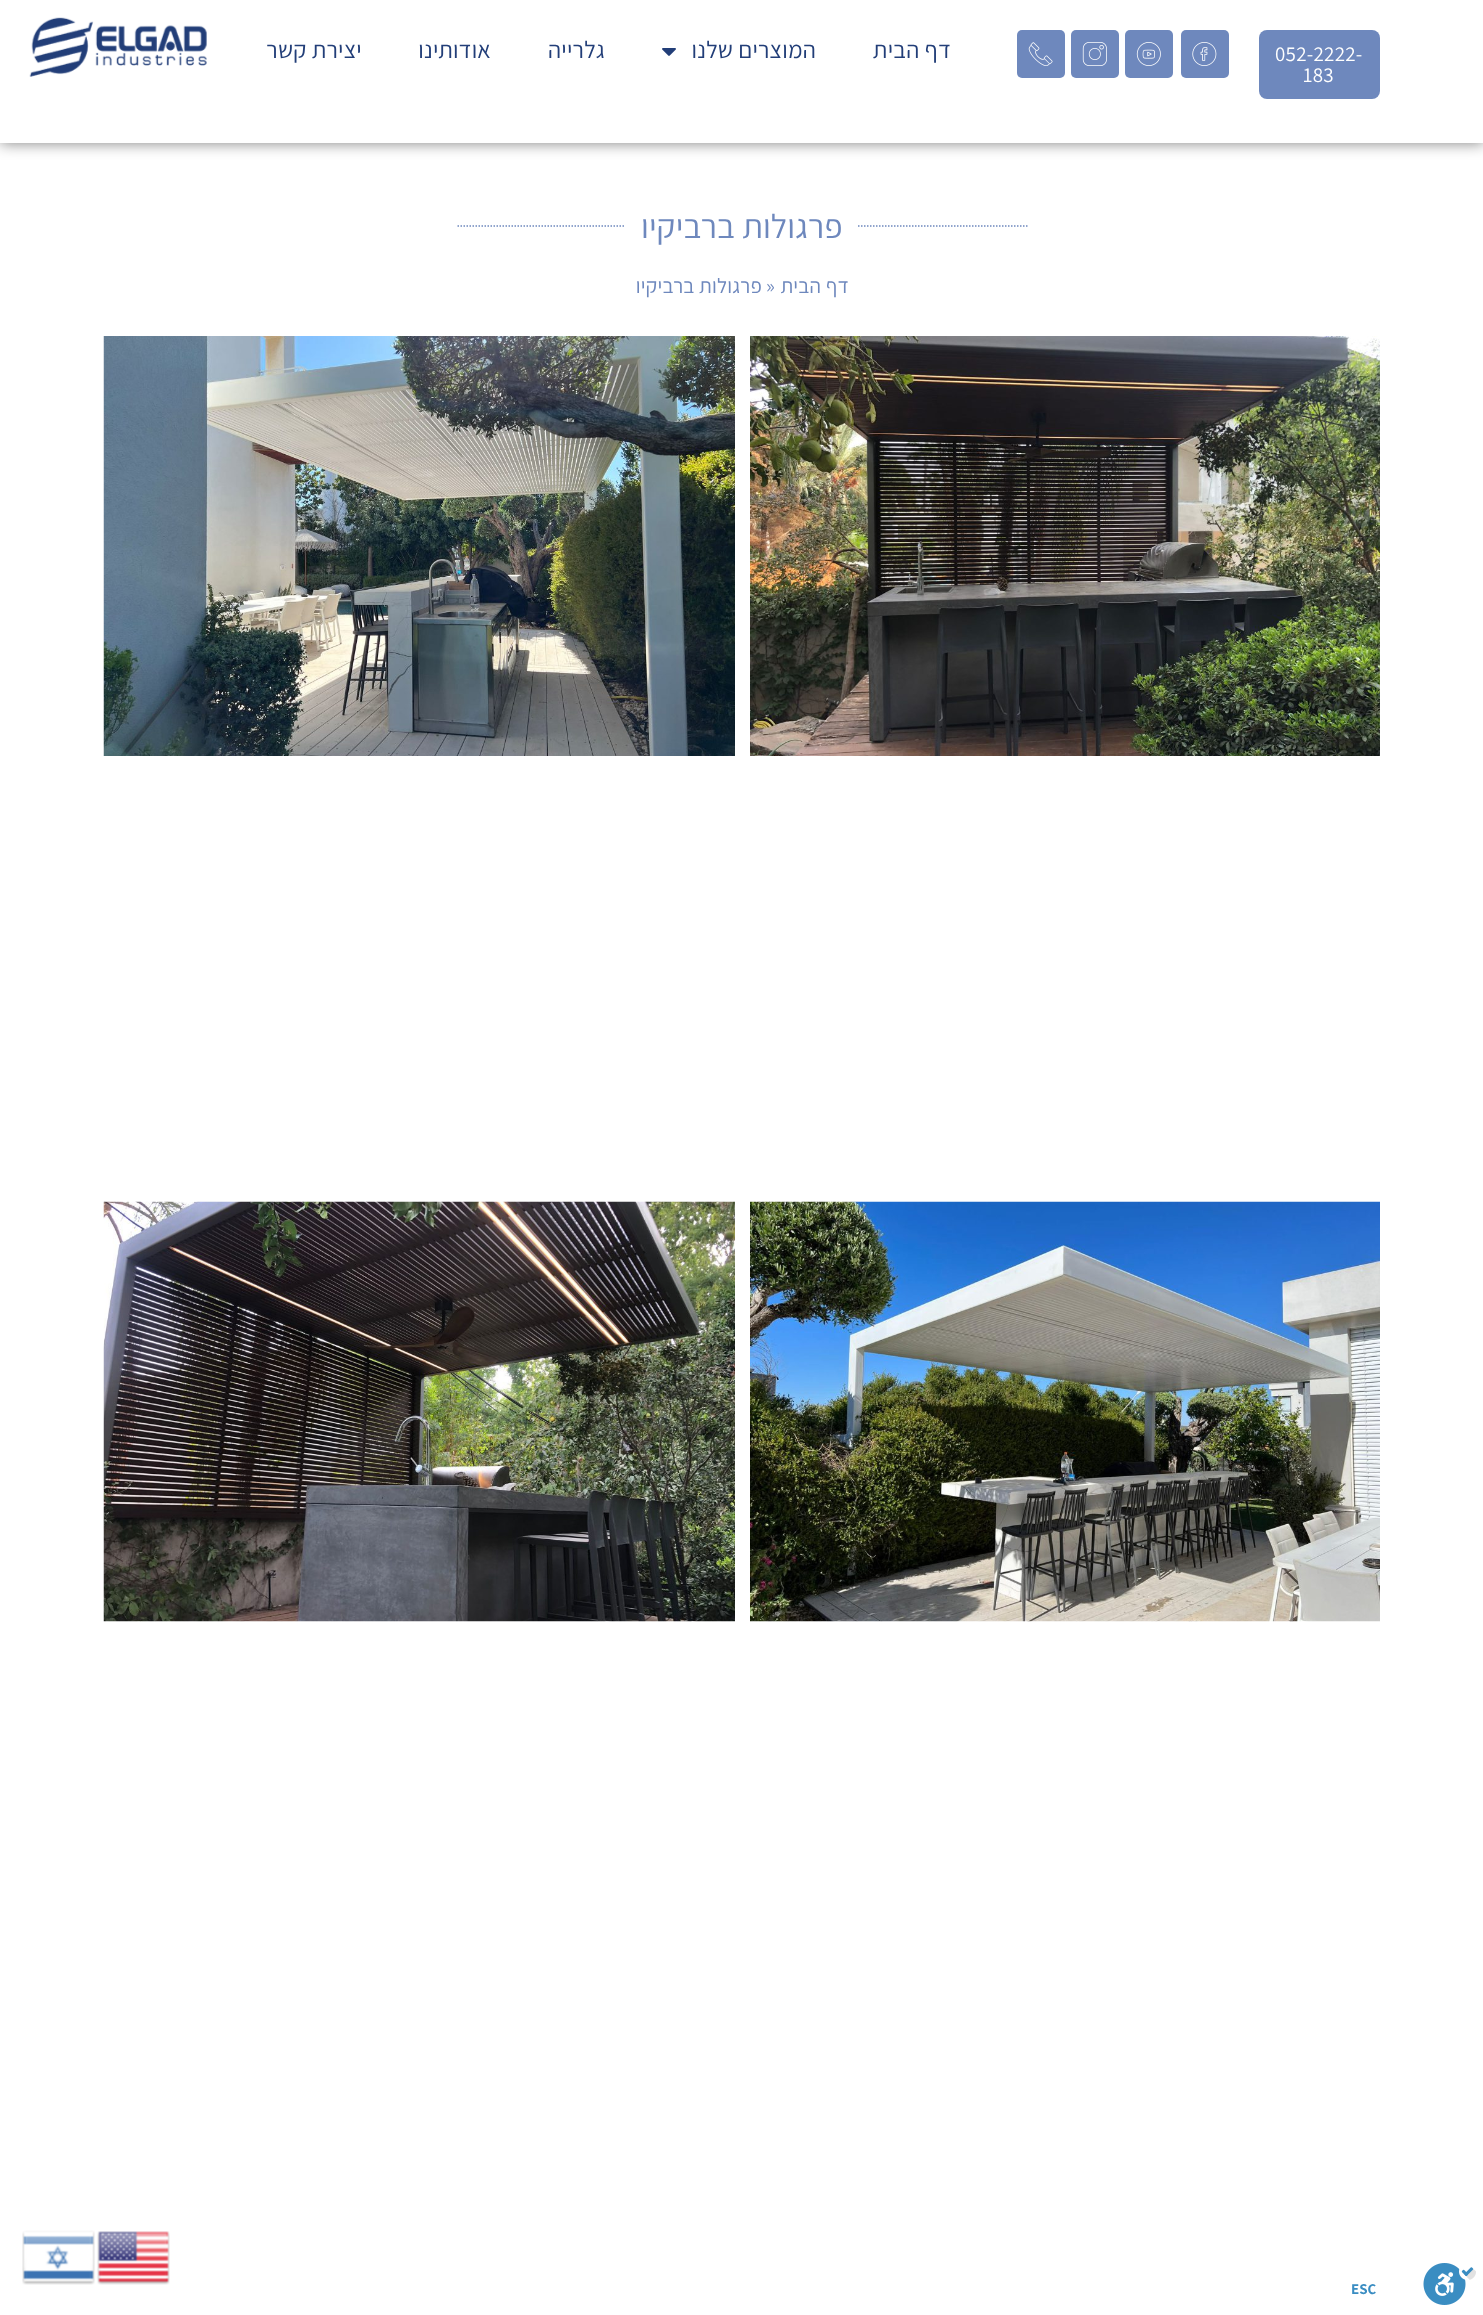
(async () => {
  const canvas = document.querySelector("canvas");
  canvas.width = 1483;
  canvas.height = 2315;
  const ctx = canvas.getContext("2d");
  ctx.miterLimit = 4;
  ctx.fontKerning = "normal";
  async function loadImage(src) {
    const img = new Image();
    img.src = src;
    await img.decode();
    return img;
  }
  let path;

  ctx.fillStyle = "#ffffff";
  ctx.fillRect(0, 0, 1483, 2315);
  ctx.save();
  path = new Path2D("M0 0H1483V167H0ZM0 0H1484V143H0Z");
  ctx.clip(path, "evenodd");
  ctx.fillStyle = "rgba(0, 0, 0, 0.5)";
  ctx.filter = "blur(7.5px)";
  ctx.beginPath();
  ctx.rect(0, 0, 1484, 143);
  ctx.fill();
  ctx.filter = "none";
  ctx.restore();
  ctx.fillStyle = "rgba(255, 255, 255, 0.92)";
  ctx.fillRect(0, 142, 1483, 1);
  ctx.fillStyle = "#6e88bd";
  ctx.beginPath();
  ctx.roundRect(1259, 30, 121, 69, 8);
  ctx.fill();
  ctx.beginPath();
  ctx.roundRect(1181, 30, 48, 48, 5);
  ctx.fill();
  ctx.drawImage(await loadImage("img/1.png"), 1192, 42, 25, 24);
  ctx.beginPath();
  ctx.roundRect(1125, 30, 48, 48, 5);
  ctx.fill();
  ctx.drawImage(await loadImage("img/2.png"), 1136, 42, 25, 24);
  ctx.beginPath();
  ctx.roundRect(1071, 30, 48, 48, 5);
  ctx.fill();
  ctx.drawImage(await loadImage("img/3.png"), 1082, 42, 25, 24);
  ctx.beginPath();
  ctx.roundRect(1017, 30, 48, 48, 5);
  ctx.fill();
  ctx.drawImage(await loadImage("img/4.png"), 1028, 42, 25, 24);
  ctx.drawImage(await loadImage("img/5.png"), 662, 48, 14, 8);
  ctx.drawImage(await loadImage("img/6.png"), 29, 17, 178, 60);
  path = new Path2D("M858 226H1027.5");
  ctx.strokeStyle = "#6e88bd";
  ctx.lineWidth = 1.5;
  ctx.setLineDash([1.5, 1.5]);
  ctx.stroke(path);
  path = new Path2D("M457.5 226H625.5");
  ctx.stroke(path);
  ctx.drawImage(await loadImage("img/7.png"), 750, 336, 630, 420);
  ctx.drawImage(await loadImage("img/8.png"), 103, 336, 632, 420);
  ctx.drawImage(await loadImage("img/9.png"), 750, 1201, 630, 421);
  ctx.drawImage(await loadImage("img/10.png"), 103, 1201, 632, 421);
  ctx.drawImage(await loadImage("img/11.png"), 97, 2231, 73, 54);
  ctx.drawImage(await loadImage("img/12.png"), 22, 2230, 73, 55);
  ctx.drawImage(await loadImage("img/13.png"), 1423, 2263, 53, 42);
  ctx.letterSpacing = "0.25px";
  ctx.font = "21px Assistant";
  ctx.fillStyle = "#ffffff";
  ctx.fillText("052-2222-", 1275, 61);
  ctx.fillText("183", 1303, 82);
  ctx.direction = "rtl";
  ctx.font = "24px Assistant";
  ctx.fillStyle = "#223e78";
  for (const [text, x, y] of [
    ["דף הבית", 951, 58],
    ["המוצרים שלנו", 816, 58],
    ["גלרייה", 605, 58],
    ["אודותינו", 491, 58],
    ["יצירת קשר", 362, 58],
  ]) {
    ctx.fillText(text, x, y);
  }
  ctx.font = "34px Assistant";
  ctx.fillStyle = "#6e88bd";
  ctx.fillText("פרגולות ברביקיו", 843, 238);
  ctx.font = "21px Assistant";
  ctx.fillText("דף הבית", 849, 293);
  ctx.direction = "ltr";
  ctx.fillText("»", 766, 293);
  ctx.direction = "rtl";
  ctx.fillText("פרגולות ברביקיו", 762, 293);
  ctx.letterSpacing = "0px";
  ctx.direction = "ltr";
  ctx.font = "bold 15px Assistant";
  ctx.fillStyle = "#3a8dc2";
  ctx.fillText("ESC", 1351, 2294);
})();
